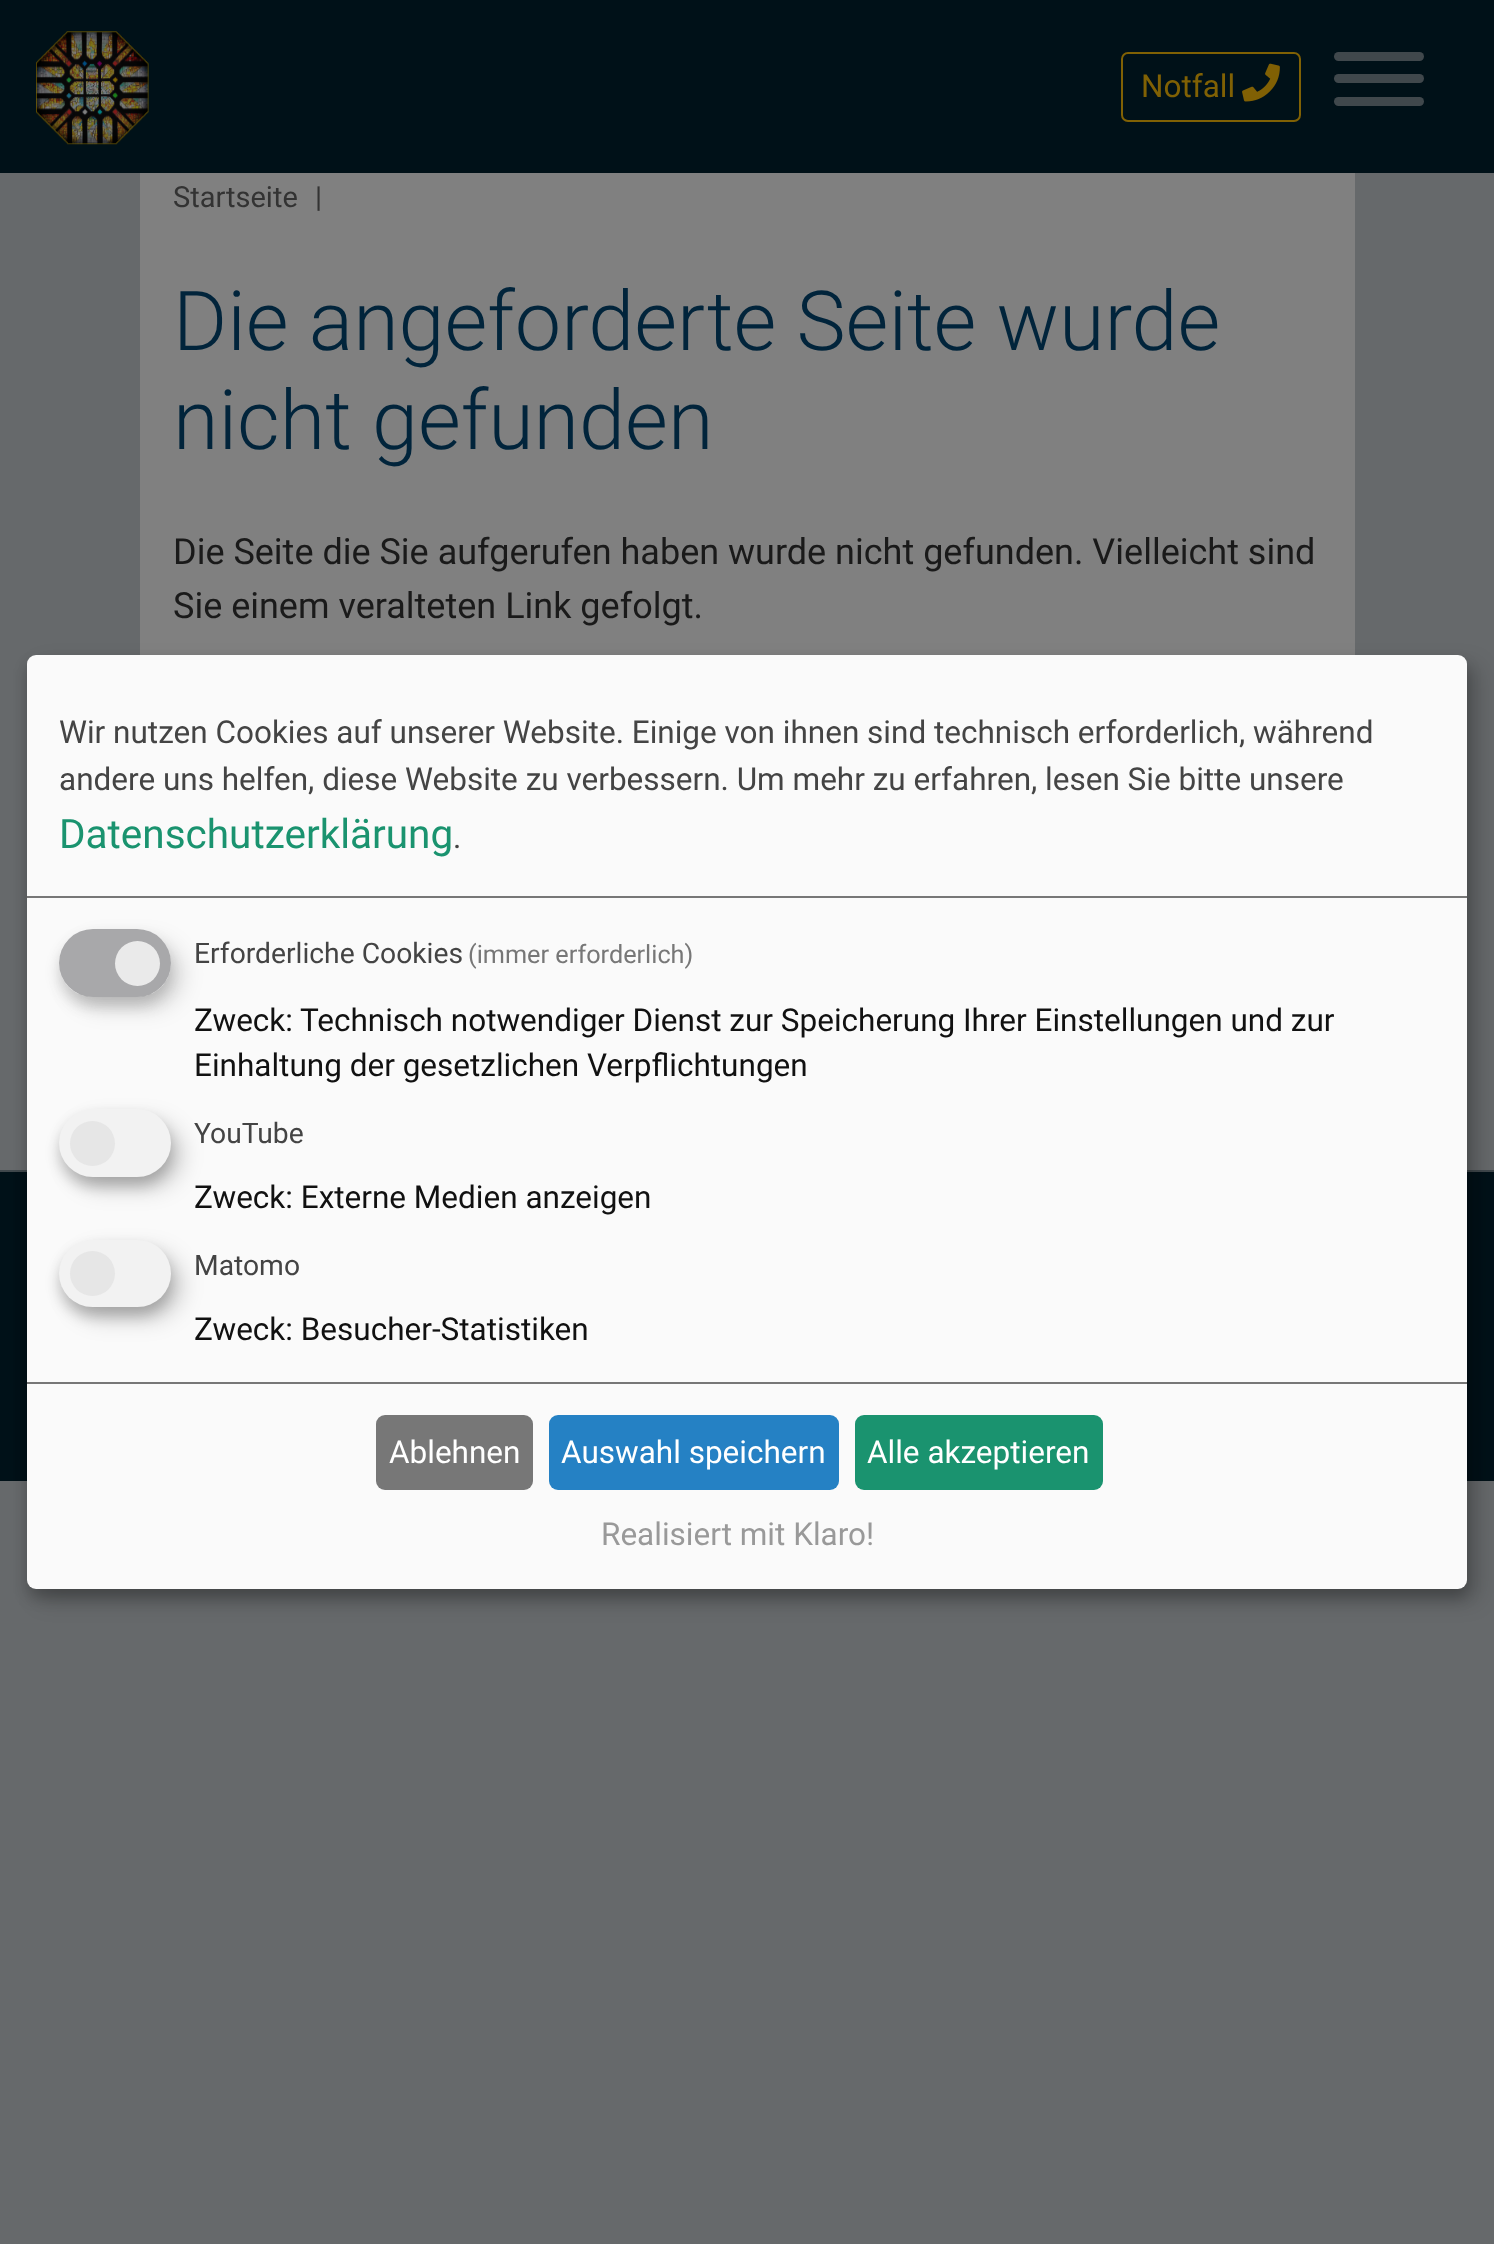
(async () => {
  const canvas = document.querySelector("canvas");
  canvas.width = 1494;
  canvas.height = 2244;
  const ctx = canvas.getContext("2d");
  ctx.miterLimit = 4;
  ctx.fontKerning = "normal";
  async function loadImage(src) {
    const img = new Image();
    img.src = src;
    await img.decode();
    return img;
  }
  let path;

  ctx.fillStyle = "#66696b";
  ctx.fillRect(0, 0, 1494, 2244);
  ctx.fillStyle = "#001118";
  ctx.fillRect(0, 0, 1494, 173);
  ctx.drawImage(await loadImage("img/1.png"), 36, 31, 113, 114);
  ctx.beginPath();
  ctx.roundRect(1122, 53, 178, 68, 6);
  ctx.strokeStyle = "#806104";
  ctx.lineWidth = 2;
  ctx.stroke();
  ctx.drawImage(await loadImage("img/2.png"), 1242, 63, 38, 39);
  ctx.fillStyle = "#40484c";
  ctx.beginPath();
  ctx.roundRect(1334, 52, 90, 9, 4.5);
  ctx.fill();
  ctx.beginPath();
  ctx.roundRect(1334, 74, 90, 9, 4.5);
  ctx.fill();
  ctx.beginPath();
  ctx.roundRect(1334, 97, 90, 9, 4.5);
  ctx.fill();
  for (const [x, y, w, h, color] of [
    [140, 173, 1215, 482, "#808080"],
    [0, 1172, 1494, 309, "#001118"],
    [0, 1170, 1494, 2, "#40484c"],
  ]) {
    ctx.fillStyle = color;
    ctx.fillRect(x, y, w, h);
  }
  ctx.fillStyle = "rgba(0, 0, 0, 0.19)";
  ctx.filter = "blur(11px)";
  ctx.beginPath();
  ctx.roundRect(38, 666, 1440, 934, 9);
  ctx.fill();
  ctx.filter = "none";
  ctx.fillStyle = "rgba(0, 0, 0, 0.2)";
  ctx.filter = "blur(7px)";
  ctx.beginPath();
  ctx.roundRect(27, 664, 1440, 934, 9);
  ctx.fill();
  ctx.filter = "none";
  ctx.fillStyle = "#fafafa";
  ctx.beginPath();
  ctx.roundRect(27, 655, 1440, 934, 9);
  ctx.fill();
  ctx.fillStyle = "#777777";
  ctx.fillRect(27, 896, 1440, 2);
  ctx.save();
  path = new Path2D("M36 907H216V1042H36ZM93 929H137C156 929 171 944 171 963C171 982 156 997 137 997H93C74 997 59 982 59 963C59 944 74 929 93 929Z");
  ctx.clip(path, "evenodd");
  ctx.fillStyle = "rgba(0, 0, 0, 0.15)";
  ctx.filter = "blur(11px)";
  ctx.beginPath();
  ctx.roundRect(70, 941, 112, 67, 33.5);
  ctx.fill();
  ctx.filter = "none";
  ctx.restore();
  ctx.save();
  path = new Path2D("M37 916H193V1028H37ZM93 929H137C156 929 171 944 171 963C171 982 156 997 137 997H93C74 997 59 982 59 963C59 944 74 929 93 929Z");
  ctx.clip(path, "evenodd");
  ctx.fillStyle = "rgba(50, 50, 50, 0.2)";
  ctx.filter = "blur(7px)";
  ctx.beginPath();
  ctx.roundRect(59, 938, 112, 68, 34);
  ctx.fill();
  ctx.filter = "none";
  ctx.restore();
  ctx.fillStyle = "rgba(88, 89, 92, 0.51)";
  ctx.beginPath();
  ctx.roundRect(59, 929, 112, 68, 34);
  ctx.fill();
  ctx.fillStyle = "#eaeaea";
  ctx.beginPath();
  ctx.arc(137.5, 963.5, 22.5, 0, Math.PI * 2);
  ctx.fill();
  ctx.fillStyle = "rgba(0, 0, 0, 0.19)";
  ctx.filter = "blur(11px)";
  ctx.beginPath();
  ctx.roundRect(70, 1121, 112, 67, 33.5);
  ctx.fill();
  ctx.filter = "none";
  ctx.fillStyle = "rgba(0, 0, 0, 0.2)";
  ctx.filter = "blur(7px)";
  ctx.beginPath();
  ctx.roundRect(59, 1118, 112, 68, 34);
  ctx.fill();
  ctx.filter = "none";
  ctx.fillStyle = "#f2f2f2";
  ctx.beginPath();
  ctx.roundRect(59, 1109, 112, 68, 34);
  ctx.fill();
  ctx.fillStyle = "#e6e6e6";
  ctx.beginPath();
  ctx.arc(92.5, 1143.5, 22.5, 0, Math.PI * 2);
  ctx.fill();
  ctx.fillStyle = "rgba(0, 0, 0, 0.19)";
  ctx.filter = "blur(11px)";
  ctx.beginPath();
  ctx.roundRect(70, 1251, 112, 68, 34);
  ctx.fill();
  ctx.filter = "none";
  ctx.fillStyle = "rgba(0, 0, 0, 0.2)";
  ctx.filter = "blur(7px)";
  ctx.beginPath();
  ctx.roundRect(59, 1249, 112, 67, 33.5);
  ctx.fill();
  ctx.filter = "none";
  ctx.fillStyle = "#f2f2f2";
  ctx.beginPath();
  ctx.roundRect(59, 1240, 112, 67, 33.5);
  ctx.fill();
  ctx.fillStyle = "#e6e6e6";
  ctx.beginPath();
  ctx.arc(92.5, 1273.5, 22.5, 0, Math.PI * 2);
  ctx.fill();
  ctx.fillStyle = "#777777";
  ctx.fillRect(27, 1382, 1440, 2);
  ctx.beginPath();
  ctx.roundRect(376, 1415, 157, 75, 9);
  ctx.fill();
  ctx.fillStyle = "#2581c4";
  ctx.beginPath();
  ctx.roundRect(549, 1415, 290, 75, 9);
  ctx.fill();
  ctx.fillStyle = "#1a936f";
  ctx.beginPath();
  ctx.roundRect(855, 1415, 248, 75, 9);
  ctx.fill();
  ctx.font = "31.5px Roboto";
  ctx.fillStyle = "#806104";
  ctx.fillText("Notfall", 1141, 97);
  ctx.font = "29px Roboto";
  ctx.fillStyle = "#333333";
  ctx.fillText("Startseite", 173, 207);
  ctx.fillText("|", 315, 207);
  ctx.font = "300 82.75px Roboto";
  ctx.fillStyle = "#01243b";
  ctx.fillText("Die angeforderte Seite wurde", 173, 350);
  ctx.fillText("nicht gefunden", 173, 449);
  ctx.font = "36px Roboto";
  ctx.fillStyle = "#1a1a1a";
  ctx.fillText("Die Seite die Sie aufgerufen haben wurde nicht gefunden. Vielleicht sind", 173, 564);
  ctx.fillText("Sie einem veralteten Link gefolgt.", 173, 618);
  ctx.font = "31.5px Roboto";
  ctx.fillStyle = "#444444";
  ctx.fillText("Wir nutzen Cookies auf unserer Website. Einige von ihnen sind technisch erforderlich, während", 59, 743);
  ctx.fillText("andere uns helfen, diese Website zu verbessern. Um mehr zu erfahren, lesen Sie bitte unsere", 59, 790);
  ctx.font = "40.5px Roboto";
  ctx.fillStyle = "#1a936f";
  ctx.fillText("Datenschutzerklärung", 59, 848);
  ctx.font = "31.5px Roboto";
  ctx.fillStyle = "#444444";
  ctx.fillText(".", 453, 848);
  ctx.font = "28.25px Roboto";
  ctx.fillText("Erforderliche Cookies", 194, 963);
  ctx.font = "25.25px Roboto";
  ctx.fillStyle = "#777777";
  ctx.fillText("(immer erforderlich)", 468, 963);
  ctx.font = "31.5px Roboto";
  ctx.fillStyle = "#111111";
  for (const [text, x, y] of [
    ["Zweck:", 194, 1031],
    ["Technisch notwendiger Dienst zur Speicherung Ihrer Einstellungen und zur", 300, 1031],
    ["Einhaltung der gesetzlichen Verpflichtungen", 194, 1076],
  ]) {
    ctx.fillText(text, x, y);
  }
  ctx.font = "28.25px Roboto";
  ctx.fillStyle = "#444444";
  ctx.fillText("YouTube", 194, 1143);
  ctx.font = "31.5px Roboto";
  ctx.fillStyle = "#111111";
  ctx.fillText("Zweck: Externe Medien anzeigen", 194, 1208);
  ctx.font = "28.25px Roboto";
  ctx.fillStyle = "#444444";
  ctx.fillText("Matomo", 194, 1275);
  ctx.font = "31.5px Roboto";
  ctx.fillStyle = "#111111";
  ctx.fillText("Zweck: Besucher-Statistiken", 194, 1340);
  ctx.fillStyle = "#ffffff";
  for (const [text, x, y] of [
    ["Ablehnen", 389, 1463],
    ["Auswahl speichern", 561, 1463],
    ["Alle akzeptieren", 867, 1463],
  ]) {
    ctx.fillText(text, x, y);
  }
  ctx.fillStyle = "#999999";
  ctx.fillText("Realisiert mit Klaro!", 601, 1545);
})();
